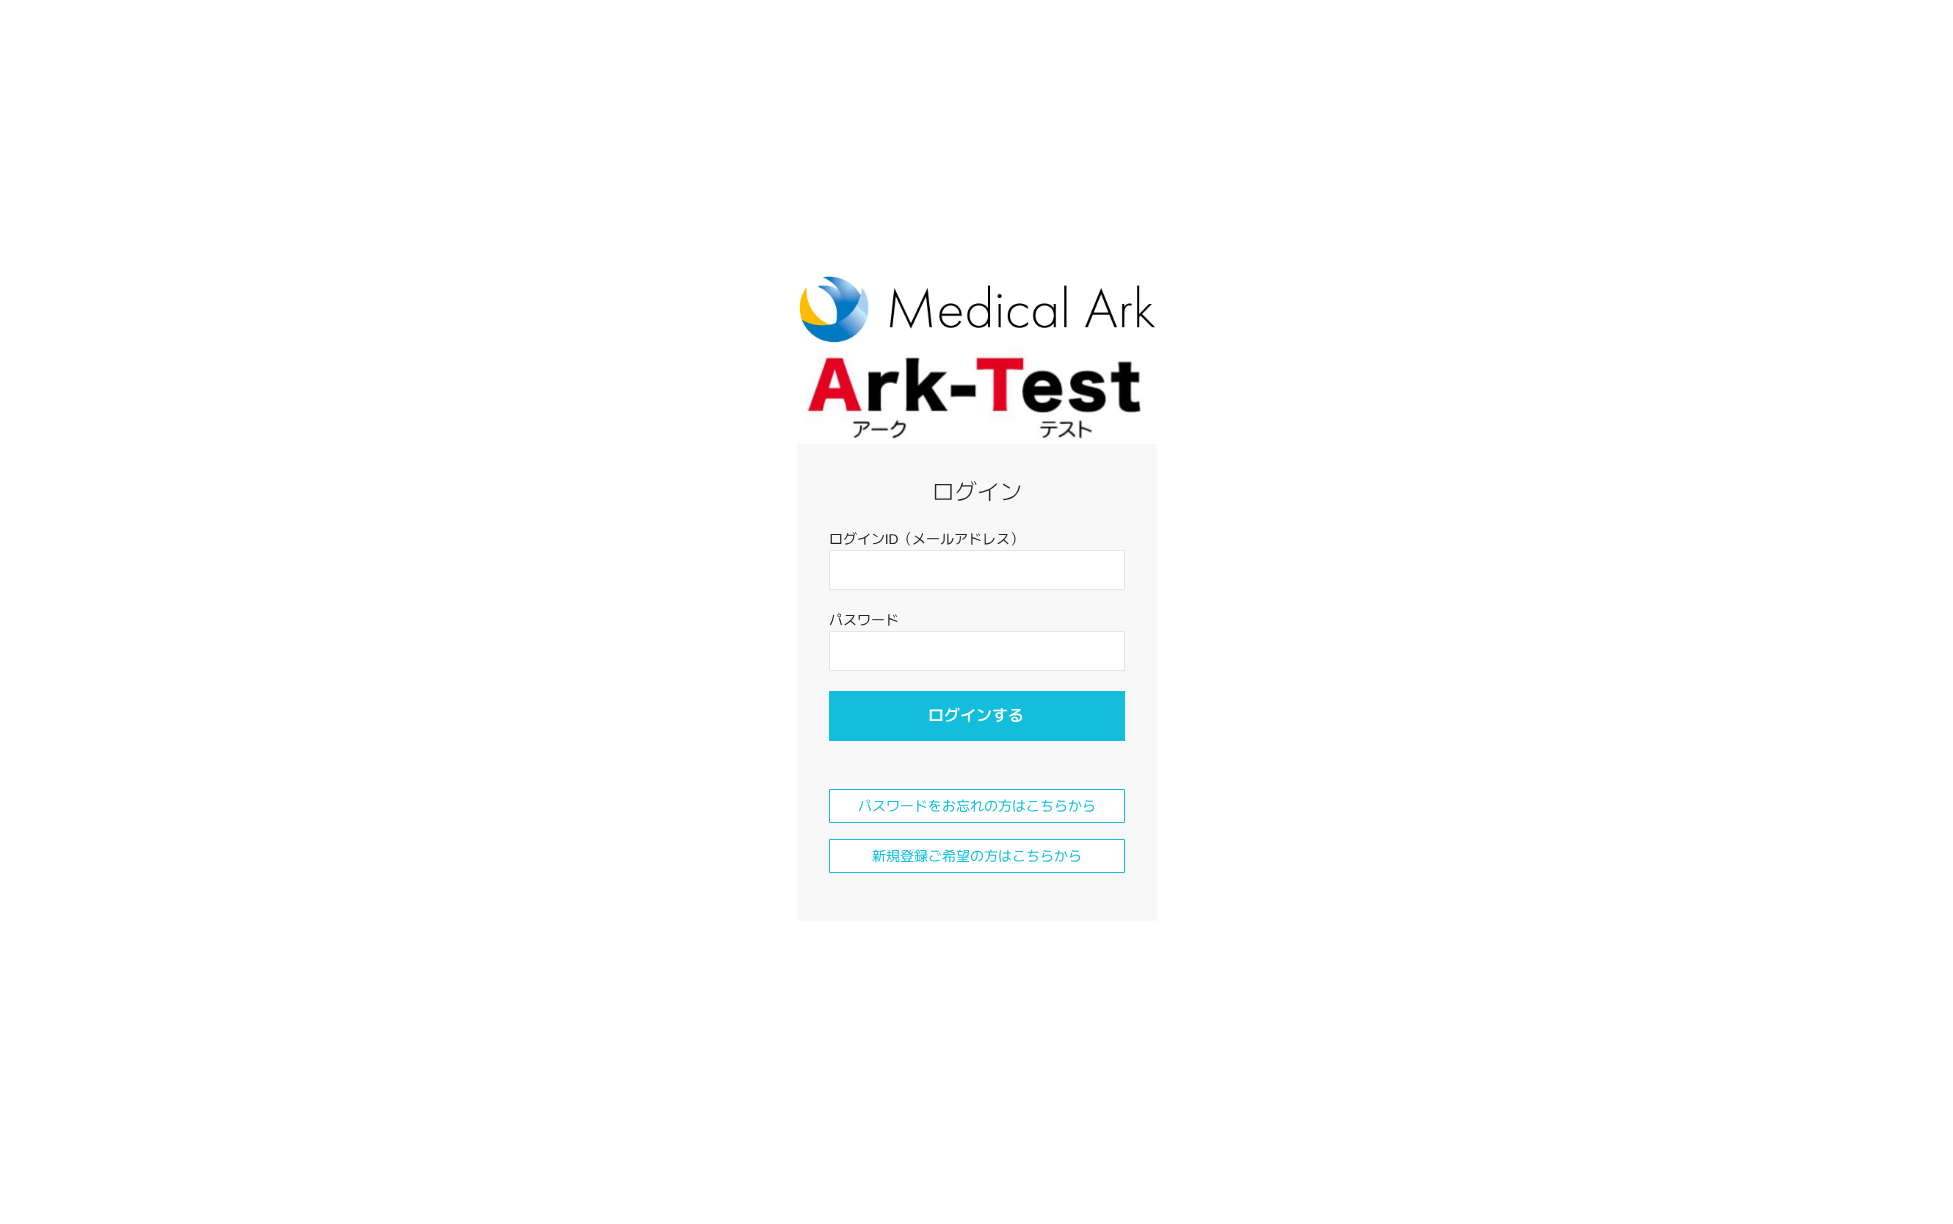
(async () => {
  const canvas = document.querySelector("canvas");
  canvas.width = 1953;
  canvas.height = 1224;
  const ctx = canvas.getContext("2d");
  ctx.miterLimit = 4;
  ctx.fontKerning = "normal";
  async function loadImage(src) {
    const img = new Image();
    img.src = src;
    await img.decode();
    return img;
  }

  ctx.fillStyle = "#ffffff";
  ctx.fillRect(0, 0, 1953, 1224);
  ctx.drawImage(await loadImage("img/1.png"), 799, 276, 357, 68);
  ctx.drawImage(await loadImage("img/2.png"), 798, 347, 357, 95);
  ctx.fillStyle = "#f8f8f8";
  ctx.fillRect(797, 444, 360, 477);
  ctx.fillStyle = "#ffffff";
  ctx.beginPath();
  ctx.rect(829.5, 550.5, 295, 39);
  ctx.fill();
  ctx.strokeStyle = "#e5e5e5";
  ctx.stroke();
  ctx.beginPath();
  ctx.rect(829.5, 631.5, 295, 39);
  ctx.fill();
  ctx.stroke();
  ctx.fillStyle = "#12bedc";
  ctx.fillRect(829, 691, 296, 50);
  ctx.fillStyle = "#ffffff";
  ctx.beginPath();
  ctx.rect(829.5, 789.5, 295, 33);
  ctx.fill();
  ctx.strokeStyle = "#12bedc";
  ctx.stroke();
  ctx.beginPath();
  ctx.rect(829.5, 839.5, 295, 33);
  ctx.fill();
  ctx.stroke();
  ctx.font = "300 22.5px Murecho";
  ctx.fillStyle = "#242a25";
  ctx.fillText("ログイン", 932, 500);
  ctx.font = "14px Murecho";
  ctx.fillStyle = "#222222";
  ctx.fillText("ログイン", 829, 544);
  ctx.font = "14px Poppins";
  ctx.fillText("ID", 885, 544);
  ctx.font = "14px Murecho";
  ctx.fillText("（メールアドレス）", 898, 544);
  ctx.fillText("パスワード", 829, 625);
  ctx.font = "500 16px Murecho";
  ctx.fillStyle = "#ffffff";
  ctx.fillText("ログインする", 928, 721);
  ctx.font = "14px Murecho";
  ctx.fillStyle = "#12bedc";
  ctx.fillText("パスワードをお忘れの方はこちらから", 858, 811);
  ctx.fillText("新規登録ご希望の方はこちらから", 872, 861);
})();
